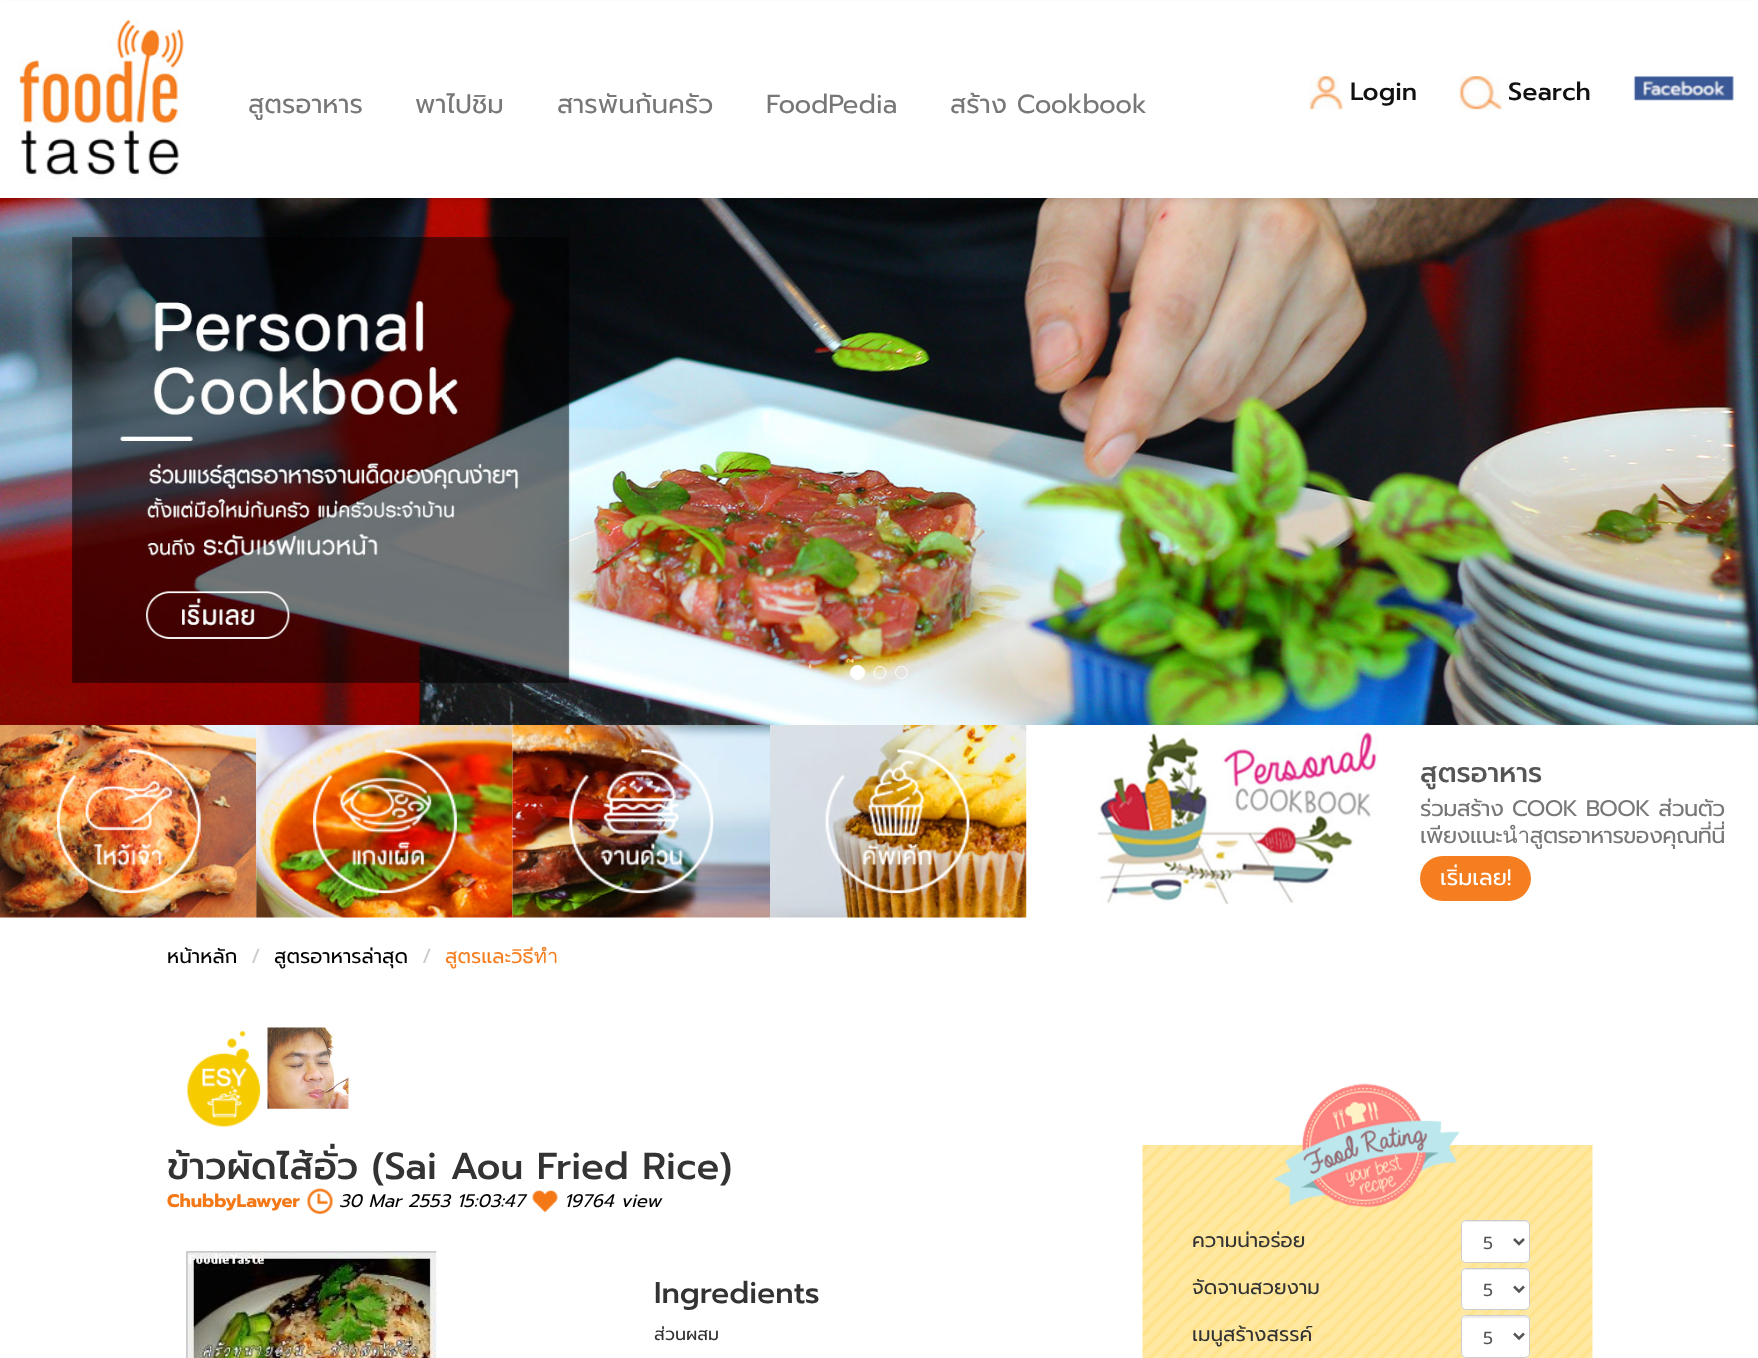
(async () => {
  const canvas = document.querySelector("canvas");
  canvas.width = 1758;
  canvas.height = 1358;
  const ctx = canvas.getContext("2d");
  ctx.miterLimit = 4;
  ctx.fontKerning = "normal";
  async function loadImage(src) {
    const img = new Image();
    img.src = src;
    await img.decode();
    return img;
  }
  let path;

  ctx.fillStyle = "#ffffff";
  ctx.fillRect(0, 0, 1758, 1358);
  ctx.drawImage(await loadImage("img/5.png"), 0, 198, 1758, 527);
  ctx.fillStyle = "rgba(0, 0, 0, 0.08)";
  ctx.filter = "blur(3px)";
  ctx.beginPath();
  ctx.rect(0, 4, 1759, 197);
  ctx.fill();
  ctx.filter = "none";
  ctx.fillStyle = "#ffffff";
  ctx.fillRect(0, 1, 1758, 197);
  ctx.drawImage(await loadImage("img/1.png"), 19, 19, 166, 160);
  ctx.drawImage(await loadImage("img/2.png"), 1309, 76, 35, 34);
  ctx.drawImage(await loadImage("img/3.png"), 1459, 76, 44, 34);
  ctx.drawImage(await loadImage("img/4.png"), 1633, 76, 101, 25);
  ctx.beginPath();
  ctx.arc(857.5, 672.5, 7, 0, Math.PI * 2);
  ctx.fill();
  ctx.strokeStyle = "#ffffff";
  ctx.stroke();
  ctx.beginPath();
  ctx.roundRect(874.5, 666.5, 11, 12, 5.5);
  ctx.stroke();
  ctx.beginPath();
  ctx.arc(901.5, 672.5, 6, 0, Math.PI * 2);
  ctx.stroke();
  ctx.drawImage(await loadImage("img/6.png"), 0, 725, 257, 193);
  ctx.drawImage(await loadImage("img/7.png"), 56, 749, 145, 145);
  ctx.drawImage(await loadImage("img/8.png"), 256, 725, 257, 193);
  ctx.drawImage(await loadImage("img/9.png"), 313, 749, 144, 145);
  ctx.drawImage(await loadImage("img/10.png"), 512, 725, 258, 193);
  ctx.drawImage(await loadImage("img/11.png"), 569, 749, 145, 145);
  ctx.drawImage(await loadImage("img/12.png"), 770, 725, 257, 193);
  ctx.drawImage(await loadImage("img/13.png"), 825, 749, 145, 145);
  ctx.drawImage(await loadImage("img/14.png"), 1095, 732, 284, 172);
  ctx.fillStyle = "#f57e20";
  ctx.beginPath();
  ctx.roundRect(1420, 856, 111, 45, 22.5);
  ctx.fill();
  ctx.drawImage(await loadImage("img/15.png"), 187, 1031, 74, 96);
  ctx.drawImage(await loadImage("img/16.png"), 267, 1027, 82, 82);
  ctx.drawImage(await loadImage("img/17.png"), 307, 1188, 26, 26);
  ctx.drawImage(await loadImage("img/18.png"), 532, 1190, 26, 23);
  ctx.drawImage(await loadImage("img/19.png"), 186, 1251, 251, 107);
  ctx.drawImage(await loadImage("img/21.png"), 1142, 1145, 451, 213);
  ctx.drawImage(await loadImage("img/20.png"), 1273, 1083, 187, 125);
  ctx.fillStyle = "#ffffff";
  ctx.beginPath();
  ctx.roundRect(1461, 1220, 69, 43, 5);
  ctx.fill();
  ctx.fillStyle = "#ececec";
  path = new Path2D("M1466 1222H1525C1527 1222 1529 1224 1529 1226V1225C1529 1223 1527 1221 1525 1221H1467C1466 1221 1464 1222 1464 1223Z");
  ctx.fill(path);
  ctx.beginPath();
  ctx.roundRect(1461.5, 1220.5, 68, 42, 4.5);
  ctx.strokeStyle = "#cccccc";
  ctx.stroke();
  path = new Path2D("M1514 1239L1519 1244L1524 1239");
  ctx.strokeStyle = "#555555";
  ctx.lineWidth = 2.5;
  ctx.stroke(path);
  ctx.fillStyle = "#ffffff";
  ctx.beginPath();
  ctx.roundRect(1461, 1268, 69, 42, 5);
  ctx.fill();
  ctx.fillStyle = "#ececec";
  path = new Path2D("M1466 1270H1525C1527 1270 1529 1272 1529 1274V1273C1529 1271 1527 1269 1525 1269H1467C1466 1269 1464 1270 1464 1271Z");
  ctx.fill(path);
  ctx.beginPath();
  ctx.roundRect(1461.5, 1268.5, 68, 41, 4.5);
  ctx.strokeStyle = "#cccccc";
  ctx.lineWidth = 1;
  ctx.stroke();
  path = new Path2D("M1514 1286.5L1519 1291.5L1524 1286.5");
  ctx.strokeStyle = "#555555";
  ctx.lineWidth = 2.5;
  ctx.stroke(path);
  ctx.fillStyle = "#ffffff";
  ctx.beginPath();
  ctx.roundRect(1461, 1315, 69, 43, 5);
  ctx.fill();
  ctx.fillStyle = "#ececec";
  path = new Path2D("M1466 1318H1525C1527 1318 1529 1319 1529 1321V1320C1529 1318 1527 1316 1525 1316H1467C1465 1316 1464 1317 1463 1319Z");
  ctx.fill(path);
  ctx.beginPath();
  ctx.roundRect(1461.5, 1315.5, 68, 42, 4.5);
  ctx.strokeStyle = "#cccccc";
  ctx.lineWidth = 1;
  ctx.stroke();
  path = new Path2D("M1514 1333.5L1519 1338.5L1524 1333.5");
  ctx.strokeStyle = "#555555";
  ctx.lineWidth = 2.5;
  ctx.stroke(path);
  ctx.font = "26.25px Prompt";
  ctx.fillStyle = "#777777";
  for (const [text, x, y] of [
    ["สูตรอาหาร", 248, 113],
    ["พาไปชิม", 415, 113],
    ["สารพันก้นครัว", 557, 113],
    ["FoodPedia", 766, 113],
    ["สร้าง Cookbook", 950, 113],
  ]) {
    ctx.fillText(text, x, y);
  }
  ctx.font = "500 25px Prompt";
  ctx.fillStyle = "#111111";
  ctx.fillText("Login", 1350, 100);
  ctx.fillText("Search", 1508, 100);
  ctx.font = "500 27.5px Prompt";
  ctx.fillStyle = "#555555";
  ctx.fillText("สูตรอาหาร", 1420, 782);
  ctx.letterSpacing = "-0.6px";
  ctx.wordSpacing = "1px";
  ctx.font = "22.5px Prompt";
  ctx.fillStyle = "#777777";
  ctx.fillText("ร่วมสร้าง COOK BOOK ส่วนตัว", 1420, 816);
  ctx.wordSpacing = "0px";
  ctx.fillText("เพียงแนะนำสูตรอาหารของคุณที่นี่", 1420, 843);
  ctx.letterSpacing = "0px";
  ctx.fillStyle = "#ffffff";
  ctx.fillText("เริ่มเลย!", 1440, 885);
  ctx.font = "20px Prompt";
  ctx.fillStyle = "#000000";
  ctx.fillText("หน้าหลัก", 167, 963);
  ctx.fillStyle = "#cccccc";
  ctx.fillText("/", 251, 963);
  ctx.fillStyle = "#000000";
  ctx.fillText("สูตรอาหารล่าสุด", 274, 963);
  ctx.fillStyle = "#cccccc";
  ctx.fillText("/", 422, 963);
  ctx.fillStyle = "#f57e20";
  ctx.fillText("สูตรและวิธีทำ", 445, 963);
  ctx.font = "500 37.5px Prompt";
  ctx.fillStyle = "#333333";
  ctx.fillText("ข้าวผัดไส้อั่ว (Sai Aou Fried Rice)", 167, 1179);
  ctx.font = "bold 18.25px Prompt";
  ctx.fillStyle = "#f47816";
  ctx.fillText("ChubbyLawyer", 167, 1207);
  ctx.font = "italic 18.25px Prompt";
  ctx.fillStyle = "#000000";
  ctx.fillText("30 Mar 2553 15:03:47", 339, 1207);
  ctx.fillText("19764 view", 564, 1207);
  ctx.font = "500 30px Prompt";
  ctx.fillStyle = "#333333";
  ctx.fillText("Ingredients", 654, 1303);
  ctx.font = "17.5px Prompt";
  ctx.fillText("ส่วนผสม", 654, 1340);
  ctx.font = "20px Prompt";
  ctx.fillText("ความน่าอร่อย", 1192, 1247);
  ctx.font = "17.5px Prompt";
  ctx.fillStyle = "#555555";
  ctx.fillText("5", 1483, 1249);
  ctx.font = "20px Prompt";
  ctx.fillStyle = "#333333";
  ctx.fillText("จัดจานสวยงาม", 1192, 1294);
  ctx.font = "17.5px Prompt";
  ctx.fillStyle = "#555555";
  ctx.fillText("5", 1483, 1296);
  ctx.font = "20px Prompt";
  ctx.fillStyle = "#333333";
  ctx.fillText("เมนูสร้างสรรค์", 1192, 1341);
  ctx.font = "17.5px Prompt";
  ctx.fillStyle = "#555555";
  ctx.fillText("5", 1483, 1344);
})();
